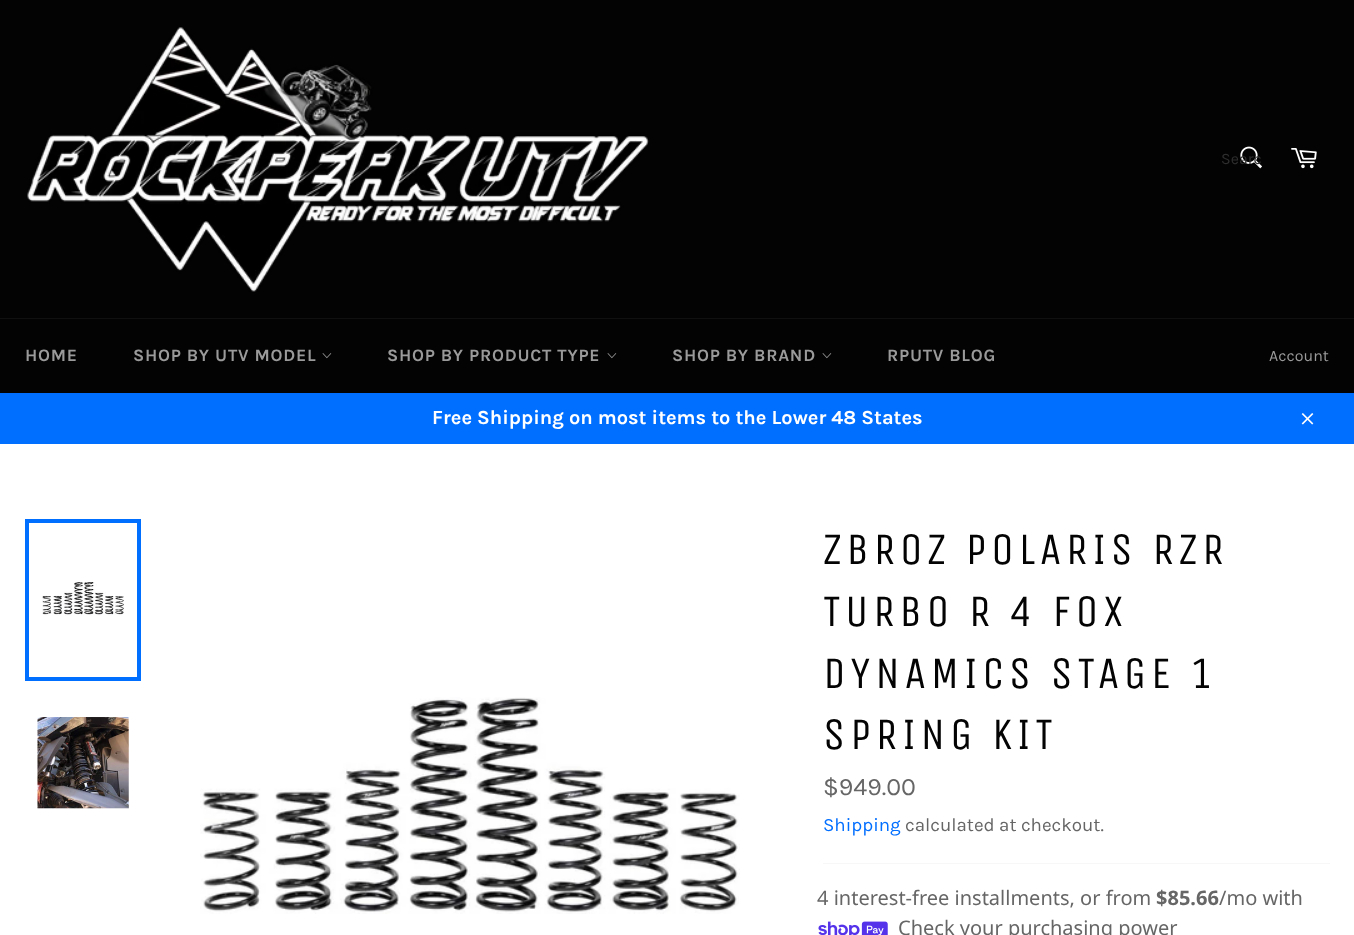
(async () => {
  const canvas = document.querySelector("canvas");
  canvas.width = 1354;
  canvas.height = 935;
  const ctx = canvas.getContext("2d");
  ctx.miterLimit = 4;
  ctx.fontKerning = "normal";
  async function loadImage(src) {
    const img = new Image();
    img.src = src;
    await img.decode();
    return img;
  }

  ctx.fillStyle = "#030303";
  ctx.fillRect(0, 0, 1354, 935);
  ctx.drawImage(await loadImage("img/1.png"), 27, 27, 622, 265);
  ctx.drawImage(await loadImage("img/2.png"), 1240, 146, 22, 23);
  ctx.drawImage(await loadImage("img/3.png"), 1291, 148, 26, 21);
  ctx.fillStyle = "#101010";
  ctx.fillRect(0, 318, 1354, 1);
  ctx.drawImage(await loadImage("img/4.png"), 322, 353, 10, 6);
  ctx.drawImage(await loadImage("img/4.png"), 607, 353, 10, 6);
  ctx.drawImage(await loadImage("img/4.png"), 822, 353, 10, 6);
  ctx.fillStyle = "#006eff";
  ctx.fillRect(0, 393, 1354, 51);
  ctx.drawImage(await loadImage("img/5.png"), 1301, 413, 13, 12);
  ctx.fillStyle = "#ffffff";
  ctx.fillRect(0, 444, 1354, 491);
  ctx.drawImage(await loadImage("img/6.png"), 42, 582, 82, 34);
  ctx.strokeStyle = "#006eff";
  ctx.lineWidth = 4;
  ctx.strokeRect(27, 521, 112, 158);
  ctx.drawImage(await loadImage("img/7.png"), 37, 717, 92, 92);
  ctx.drawImage(await loadImage("img/8.png"), 200, 697, 540, 217);
  ctx.fillStyle = "#f7f7f7";
  ctx.fillRect(823, 863, 507, 1);
  ctx.drawImage(await loadImage("img/9.png"), 818, 921, 70, 14);
  ctx.save();
  ctx.beginPath();
  ctx.rect(1221, 150, 40, 19);
  ctx.clip();
  ctx.font = "16px Karla";
  ctx.fillStyle = "#2e2e2e";
  ctx.fillText("Searc", 1221, 164);
  ctx.restore();
  ctx.letterSpacing = "0.75px";
  ctx.font = "bold 17.5px Karla";
  ctx.fillStyle = "#9a9a9a";
  for (const [text, x, y] of [
    ["HOME", 25, 361],
    ["SHOP BY UTV MODEL", 133, 361],
    ["SHOP BY PRODUCT TYPE", 387, 361],
    ["SHOP BY BRAND", 672, 361],
    ["RPUTV BLOG", 887, 361],
  ]) {
    ctx.fillText(text, x, y);
  }
  ctx.letterSpacing = "0px";
  ctx.font = "16px Karla";
  ctx.fillText("Account", 1269, 361);
  ctx.font = "bold 20px Karla";
  ctx.fillStyle = "#ffffff";
  ctx.fillText("Free Shipping on most items to the Lower 48 States", 432, 424);
  ctx.letterSpacing = "4.5px";
  ctx.font = "45px Unica One";
  ctx.fillStyle = "#030303";
  for (const [text, x, y] of [
    ["ZBROZ POLARIS RZR", 823, 564],
    ["TURBO R 4 FOX", 823, 626],
    ["DYNAMICS STAGE 1", 823, 688],
    ["SPRING KIT", 823, 749],
  ]) {
    ctx.fillText(text, x, y);
  }
  ctx.letterSpacing = "0px";
  ctx.font = "25px Karla";
  ctx.fillStyle = "#666666";
  ctx.fillText("$949.00", 823, 795);
  ctx.font = "18.75px Karla";
  ctx.fillStyle = "#006eff";
  ctx.fillText("Shipping", 823, 831);
  ctx.fillStyle = "#666666";
  ctx.fillText("calculated at checkout.", 905, 831);
  ctx.font = "20px Noto Sans";
  ctx.fillText("4 interest-free installments, or from", 817, 905);
  ctx.font = "bold 20px Noto Sans";
  ctx.fillText("$85.66", 1156, 905);
  ctx.font = "20px Noto Sans";
  ctx.fillText("/mo with", 1219, 905);
  ctx.fillText("Check your purchasing power", 898, 935);
})();
